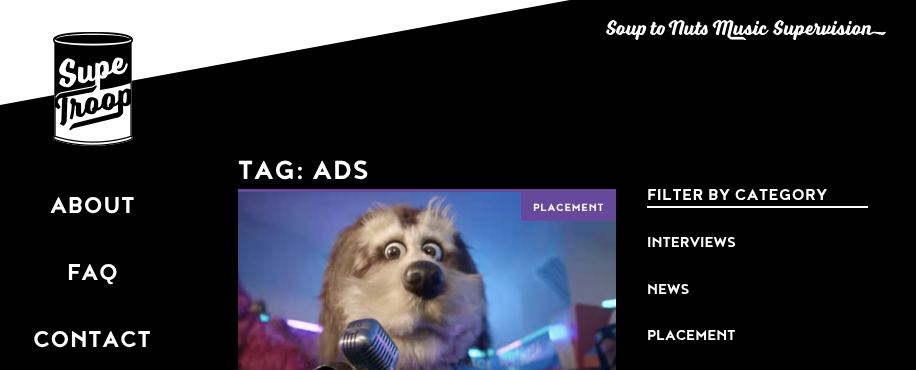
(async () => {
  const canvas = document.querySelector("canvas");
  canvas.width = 916;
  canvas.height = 370;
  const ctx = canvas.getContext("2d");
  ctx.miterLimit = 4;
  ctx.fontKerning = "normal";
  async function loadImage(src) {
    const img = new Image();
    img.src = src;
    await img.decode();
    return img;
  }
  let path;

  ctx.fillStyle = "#000000";
  ctx.fillRect(0, 0, 916, 370);
  ctx.fillStyle = "#ffffff";
  path = new Path2D("M0 0H570L0 105Z");
  ctx.fill(path);
  ctx.drawImage(await loadImage("img/1.png"), 606, 20, 280, 20);
  ctx.drawImage(await loadImage("img/2.png"), 53, 32, 80, 114);
  ctx.fillStyle = "#66499d";
  ctx.fillRect(238, 189, 378, 3);
  ctx.drawImage(await loadImage("img/3.png"), 238, 192, 378, 178);
  ctx.fillRect(521, 192, 95, 29);
  ctx.fillStyle = "#ffffff";
  ctx.fillRect(647, 206, 221, 2);
  ctx.letterSpacing = "0.75px";
  ctx.font = "bold 28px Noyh";
  for (const [text, x, y] of [
    ["ABOUT", 50, 213],
    ["FAQ", 67, 280],
    ["CONTACT", 33, 347],
  ]) {
    ctx.fillText(text, x, y);
  }
  ctx.letterSpacing = "1px";
  ctx.font = "bold 32px Noyh";
  ctx.fillText("TAG: ADS", 238, 179);
  ctx.letterSpacing = "0.75px";
  ctx.font = "bold 12.75px Noyh";
  ctx.fillText("PLACEMENT", 533, 211);
  ctx.letterSpacing = "0.5px";
  ctx.font = "bold 19.25px Noyh";
  ctx.fillText("FILTER BY CATEGORY", 647, 200);
  ctx.letterSpacing = "0px";
  ctx.font = "bold 17.5px Noyh";
  for (const [text, x, y] of [
    ["INTERVIEWS", 647, 247],
    ["NEWS", 647, 294],
    ["PLACEMENT", 647, 340],
  ]) {
    ctx.fillText(text, x, y);
  }
})();
